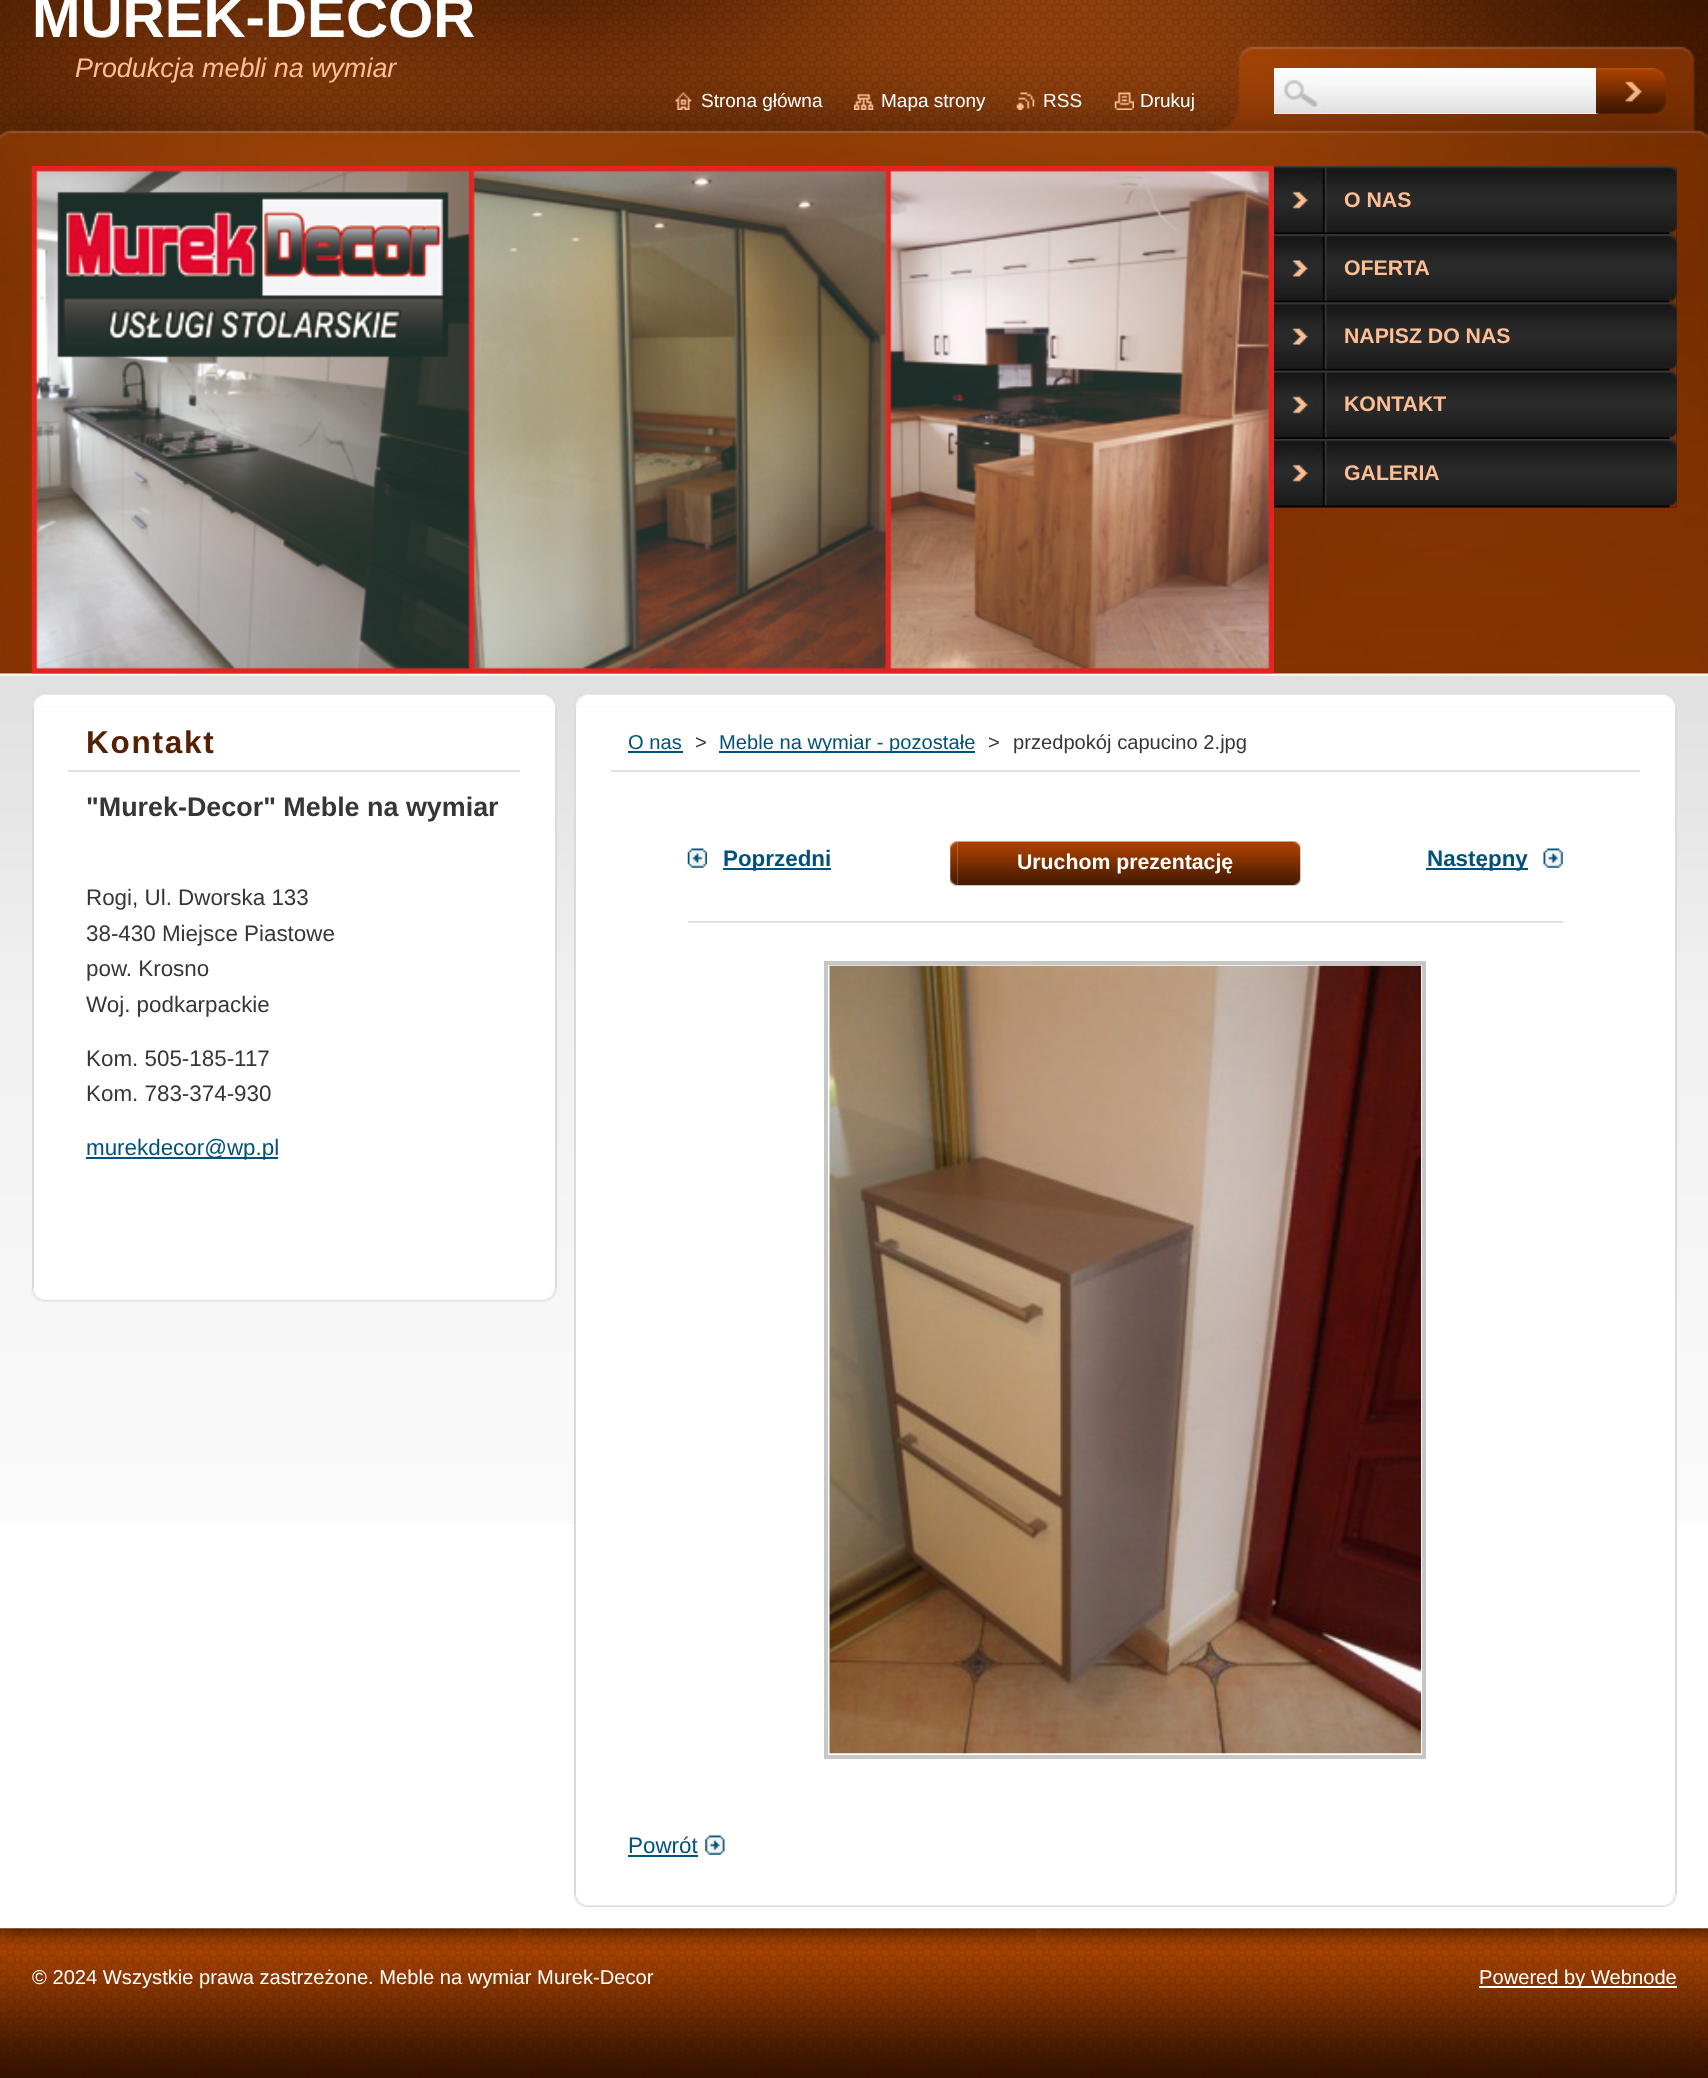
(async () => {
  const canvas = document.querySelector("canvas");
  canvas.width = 1708;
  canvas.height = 2078;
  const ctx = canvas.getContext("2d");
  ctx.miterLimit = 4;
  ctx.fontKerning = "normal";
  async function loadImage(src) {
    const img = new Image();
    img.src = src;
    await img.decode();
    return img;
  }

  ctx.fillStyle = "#ffffff";
  ctx.fillRect(0, 0, 1708, 2078);
  ctx.drawImage(await loadImage("img/1.png"), 0, 675, 1708, 849);
  ctx.drawImage(await loadImage("img/2.png"), 0, 0, 1708, 676);
  ctx.drawImage(await loadImage("img/3.png"), 31, 166, 1243, 508);
  ctx.drawImage(await loadImage("img/4.png"), 675, 92, 17, 18);
  ctx.drawImage(await loadImage("img/5.png"), 854, 93, 20, 17);
  ctx.drawImage(await loadImage("img/6.png"), 1016, 92, 19, 18);
  ctx.drawImage(await loadImage("img/7.png"), 1114, 92, 20, 18);
  ctx.fillRect(1274, 68, 324, 46);
  ctx.drawImage(await loadImage("img/8.png"), 1274, 70, 324, 44);
  ctx.drawImage(await loadImage("img/9.png"), 1596, 68, 70, 46);
  ctx.fillStyle = "#2a2a2a";
  ctx.fillRect(1274, 166, 403, 205);
  ctx.drawImage(await loadImage("img/10.png"), 1274, 166, 403, 69);
  ctx.drawImage(await loadImage("img/11.png"), 1274, 234, 403, 69);
  ctx.drawImage(await loadImage("img/12.png"), 1274, 302, 403, 69);
  ctx.fillRect(1676, 371, 1, 68);
  ctx.drawImage(await loadImage("img/13.png"), 1274, 370, 403, 69);
  ctx.fillRect(1274, 439, 403, 69);
  ctx.drawImage(await loadImage("img/14.png"), 1274, 439, 403, 69);
  ctx.drawImage(await loadImage("img/15.png"), 32, 693, 523, 14);
  ctx.drawImage(await loadImage("img/16.png"), 31, 1287, 526, 15);
  for (const [x, y, w, h, color] of [
    [34, 707, 521, 581, "#ffffff"],
    [555, 707, 2, 581, "#dadada"],
    [32, 707, 2, 581, "#dadada"],
    [68, 770, 452, 2, "#e1e1e1"],
    [86, 1157, 192, 2, "#005279"],
  ]) {
    ctx.fillStyle = color;
    ctx.fillRect(x, y, w, h);
  }
  ctx.drawImage(await loadImage("img/17.png"), 574, 693, 1101, 14);
  for (const [x, y, w, h, color] of [
    [576, 707, 1099, 817, "#ffffff"],
    [1675, 707, 2, 1187, "#dadada"],
    [574, 707, 2, 1187, "#dadada"],
    [611, 770, 1029, 2, "#e1e1e1"],
    [628, 751, 55, 2, "#005279"],
    [719, 751, 256, 2, "#005279"],
    [688, 921, 875, 2, "#e1e1e1"],
  ]) {
    ctx.fillStyle = color;
    ctx.fillRect(x, y, w, h);
  }
  ctx.drawImage(await loadImage("img/18.png"), 687, 848, 20, 20);
  ctx.fillStyle = "#005279";
  ctx.fillRect(723, 868, 108, 2);
  ctx.drawImage(await loadImage("img/19.png"), 950, 841, 8, 45);
  ctx.drawImage(await loadImage("img/20.png"), 957, 841, 344, 45);
  ctx.drawImage(await loadImage("img/21.png"), 1543, 848, 20, 20);
  ctx.fillRect(1426, 868, 102, 2);
  ctx.strokeStyle = "#c7c7c7";
  ctx.lineWidth = 4;
  ctx.strokeRect(826, 963, 598, 794);
  ctx.drawImage(await loadImage("img/22.png"), 829, 965, 592, 789);
  ctx.drawImage(await loadImage("img/23.png"), 705, 1835, 20, 20);
  ctx.fillRect(628, 1855, 70, 2);
  ctx.drawImage(await loadImage("img/24.png"), 574, 1894, 1103, 13);
  ctx.drawImage(await loadImage("img/25.png"), 0, 1928, 1708, 150);
  ctx.fillStyle = "#ffffff";
  ctx.fillRect(1479, 1986, 198, 2);
  ctx.font = "bold 58.25px Liberation Sans";
  ctx.fillText("MUREK-DECOR", 32, 37);
  ctx.font = "italic 26.9px Liberation Sans";
  ctx.fillStyle = "#ffbe93";
  ctx.fillText("Produkcja mebli na wymiar", 75, 77);
  ctx.font = "19px Liberation Sans";
  ctx.fillStyle = "#ffffff";
  for (const [text, x, y] of [
    ["Strona główna", 701, 107],
    ["Mapa strony", 881, 107],
    ["RSS", 1043, 107],
    ["Drukuj", 1140, 107],
  ]) {
    ctx.fillText(text, x, y);
  }
  ctx.font = "bold 21.25px Liberation Sans";
  ctx.fillStyle = "#ffbe93";
  for (const [text, x, y] of [
    ["O NAS", 1344, 207],
    ["OFERTA", 1344, 275],
    ["NAPISZ DO NAS", 1344, 343],
    ["KONTAKT", 1344, 411],
    ["GALERIA", 1344, 480],
  ]) {
    ctx.fillText(text, x, y);
  }
  ctx.letterSpacing = "1.75px";
  ctx.font = "bold 31.5px Liberation Sans";
  ctx.fillStyle = "#562003";
  ctx.fillText("Kontakt", 86, 753);
  ctx.letterSpacing = "0px";
  ctx.font = "bold 26.9px Liberation Sans";
  ctx.fillStyle = "#363636";
  ctx.fillText("\"Murek-Decor\" Meble na wymiar", 86, 816);
  ctx.font = "22.4px Liberation Sans";
  for (const [text, x, y] of [
    ["Rogi, Ul. Dworska 133", 86, 905],
    ["38-430 Miejsce Piastowe", 86, 941],
    ["pow. Krosno", 86, 976],
    ["Woj. podkarpackie", 86, 1012],
    ["Kom. 505-185-117", 86, 1066],
    ["Kom. 783-374-930", 86, 1101],
  ]) {
    ctx.fillText(text, x, y);
  }
  ctx.fillStyle = "#005279";
  ctx.fillText("murekdecor@wp.pl", 86, 1155);
  ctx.font = "20.15px Liberation Sans";
  ctx.fillText("O nas", 628, 749);
  ctx.fillStyle = "#363636";
  ctx.fillText(">", 695, 749);
  ctx.fillStyle = "#005279";
  ctx.fillText("Meble na wymiar - pozostałe", 719, 749);
  ctx.fillStyle = "#363636";
  ctx.fillText(">", 988, 749);
  ctx.fillText("przedpokój capucino 2.jpg", 1013, 749);
  ctx.font = "bold 22.4px Liberation Sans";
  ctx.fillStyle = "#005279";
  ctx.fillText("Poprzedni", 723, 866);
  ctx.font = "bold 21.25px Liberation Sans";
  ctx.fillStyle = "#ffffff";
  ctx.fillText("Uruchom prezentację", 1017, 869);
  ctx.font = "bold 22.4px Liberation Sans";
  ctx.fillStyle = "#005279";
  ctx.fillText("Następny", 1427, 866);
  ctx.font = "22.4px Liberation Sans";
  ctx.fillText("Powrót", 628, 1853);
  ctx.font = "20.15px Liberation Sans";
  ctx.fillStyle = "#ffffff";
  ctx.fillText("© 2024 Wszystkie prawa zastrzeżone. Meble na wymiar Murek-Decor", 32, 1984);
  ctx.fillText("Powered by Webnode", 1479, 1984);
})();
